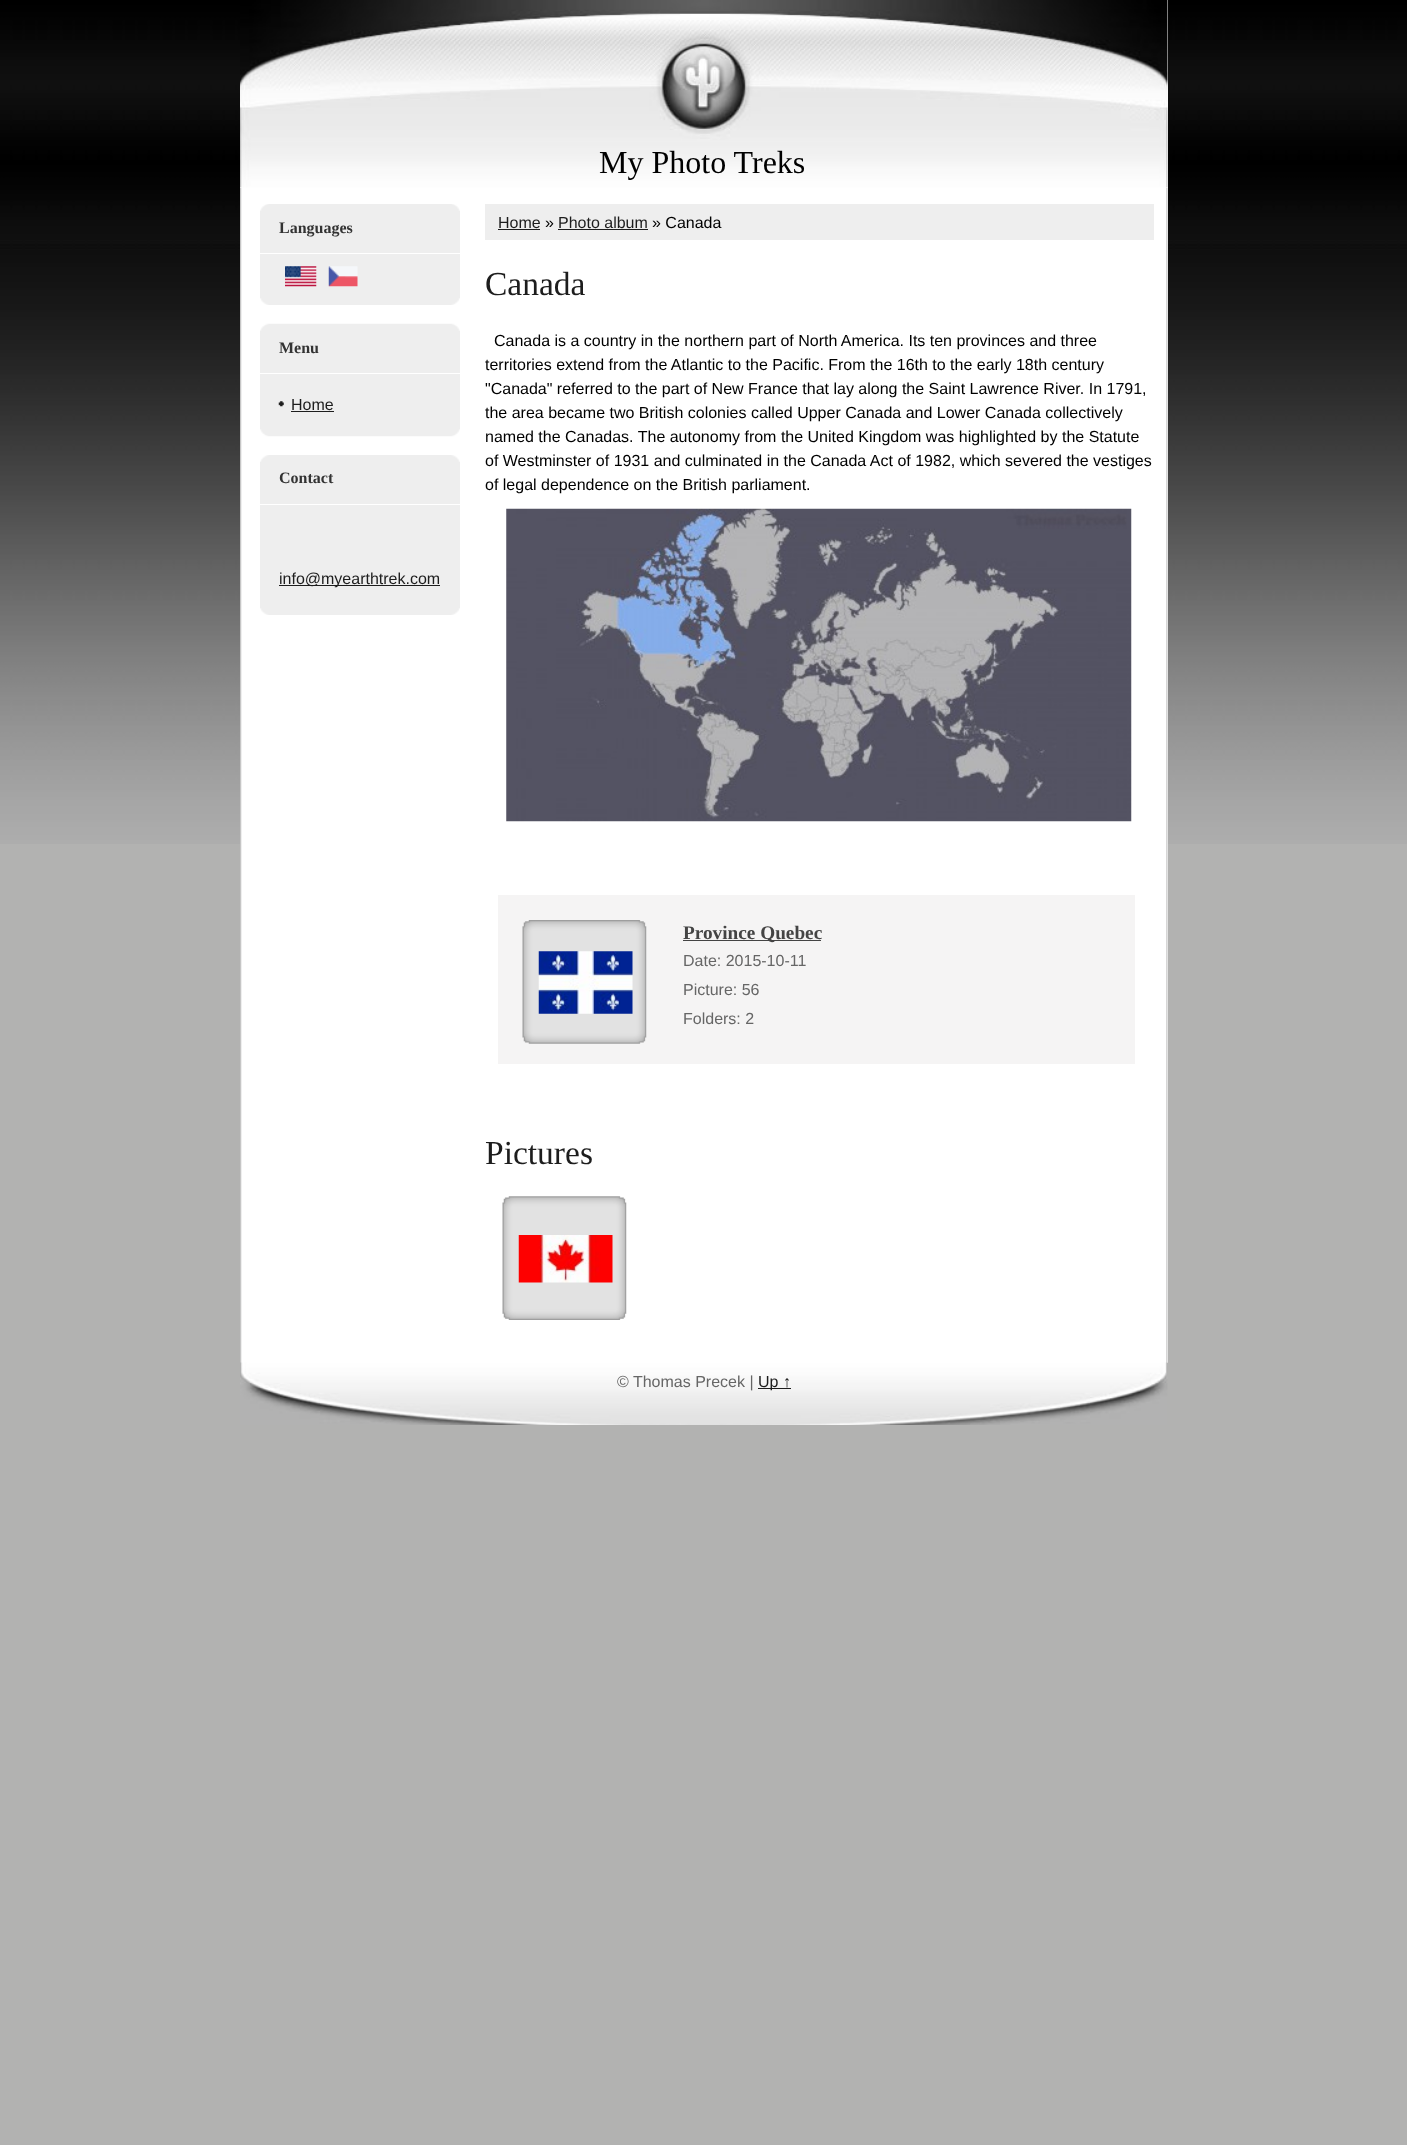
(async () => {
  const canvas = document.querySelector("canvas");
  canvas.width = 1407;
  canvas.height = 2145;
  const ctx = canvas.getContext("2d");
  ctx.miterLimit = 4;
  ctx.fontKerning = "normal";
  async function loadImage(src) {
    const img = new Image();
    img.src = src;
    await img.decode();
    return img;
  }

  ctx.fillStyle = "#b2b2b1";
  ctx.fillRect(0, 0, 1407, 2145);
  ctx.drawImage(await loadImage("img/1.png"), 0, 0, 1407, 844);
  ctx.fillStyle = "#ffffff";
  ctx.fillRect(1167, 188, 1, 1175);
  ctx.drawImage(await loadImage("img/2.png"), 240, 188, 928, 1175);
  ctx.fillRect(240, 0, 928, 188);
  ctx.drawImage(await loadImage("img/3.png"), 240, 0, 928, 188);
  ctx.fillStyle = "#eeeeee";
  ctx.fillRect(260, 211, 200, 87);
  ctx.drawImage(await loadImage("img/4.png"), 260, 298, 200, 7);
  ctx.drawImage(await loadImage("img/5.png"), 260, 204, 200, 7);
  ctx.fillStyle = "#ffffff";
  ctx.fillRect(260, 253, 200, 1);
  ctx.drawImage(await loadImage("img/6.png"), 285, 266, 32, 21);
  ctx.drawImage(await loadImage("img/7.png"), 328, 266, 30, 21);
  ctx.fillStyle = "#eeeeee";
  ctx.fillRect(260, 331, 200, 98);
  ctx.drawImage(await loadImage("img/8.png"), 260, 429, 200, 8);
  ctx.drawImage(await loadImage("img/9.png"), 260, 323, 200, 8);
  ctx.fillStyle = "#ffffff";
  ctx.fillRect(260, 373, 200, 1);
  ctx.drawImage(await loadImage("img/10.png"), 278, 401, 6, 6);
  ctx.fillStyle = "#1d1d1d";
  ctx.fillRect(291, 411, 43, 1);
  ctx.fillStyle = "#eeeeee";
  ctx.fillRect(260, 462, 200, 146);
  ctx.drawImage(await loadImage("img/4.png"), 260, 608, 200, 7);
  ctx.drawImage(await loadImage("img/11.png"), 260, 455, 200, 7);
  for (const [x, y, w, h, color] of [
    [260, 504, 200, 1, "#ffffff"],
    [279, 585, 161, 1, "#1d1d1d"],
    [485, 204, 669, 36, "#eeeeee"],
    [498, 229, 42, 1, "#1d1d1d"],
    [558, 229, 90, 1, "#1d1d1d"],
  ]) {
    ctx.fillStyle = color;
    ctx.fillRect(x, y, w, h);
  }
  ctx.drawImage(await loadImage("img/12.png"), 506, 508, 626, 314);
  ctx.fillStyle = "#f5f4f4";
  ctx.fillRect(498, 895, 637, 169);
  ctx.drawImage(await loadImage("img/13.png"), 522, 920, 125, 124);
  ctx.drawImage(await loadImage("img/14.png"), 538, 951, 95, 63);
  ctx.fillStyle = "#444444";
  ctx.fillRect(683, 940, 138, 1);
  ctx.drawImage(await loadImage("img/15.png"), 502, 1196, 125, 124);
  ctx.drawImage(await loadImage("img/16.png"), 518, 1235, 95, 48);
  ctx.drawImage(await loadImage("img/17.png"), 240, 1362, 928, 63);
  ctx.fillStyle = "#1d1d1d";
  ctx.fillRect(758, 1388, 33, 1);
  ctx.font = "32px Liberation Serif";
  ctx.fillStyle = "#000000";
  ctx.fillText("My Photo Treks", 599, 173);
  ctx.font = "bold 16px Liberation Serif";
  ctx.fillStyle = "#333333";
  ctx.fillText("Languages", 279, 233);
  ctx.fillText("Menu", 279, 353);
  ctx.font = "16px Liberation Sans";
  ctx.fillStyle = "#1d1d1d";
  ctx.fillText("Home", 291, 410);
  ctx.font = "bold 16px Liberation Serif";
  ctx.fillStyle = "#333333";
  ctx.fillText("Contact", 279, 483);
  ctx.font = "16px Liberation Sans";
  ctx.fillStyle = "#1d1d1d";
  ctx.fillText("info@myearthtrek.com", 279, 584);
  ctx.fillText("Home", 498, 228);
  ctx.fillStyle = "#000000";
  ctx.fillText("»", 545, 228);
  ctx.fillStyle = "#1d1d1d";
  ctx.fillText("Photo album", 558, 228);
  ctx.fillStyle = "#000000";
  ctx.fillText("» Canada", 652, 228);
  ctx.font = "33.5px Liberation Serif";
  ctx.fillStyle = "#1d1d1d";
  ctx.fillText("Canada", 485, 295);
  ctx.font = "16px Liberation Sans";
  ctx.fillStyle = "#000000";
  for (const [text, x, y] of [
    ["Canada is a country in the northern part of North America. Its ten provinces and three", 494, 346],
    ["territories extend from the Atlantic to the Pacific. From the 16th to the early 18th century", 485, 370],
    ["\"Canada\" referred to the part of New France that lay along the Saint Lawrence River. In 1791,", 485, 394],
    ["the area became two British colonies called Upper Canada and Lower Canada collectively", 485, 418],
    ["named the Canadas. The autonomy from the United Kingdom was highlighted by the Statute", 485, 442],
    ["of Westminster of 1931 and culminated in the Canada Act of 1982, which severed the vestiges", 485, 466],
    ["of legal dependence on the British parliament.", 485, 490],
  ]) {
    ctx.fillText(text, x, y);
  }
  ctx.font = "bold 19.25px Liberation Serif";
  ctx.fillStyle = "#444444";
  ctx.fillText("Province Quebec", 683, 939);
  ctx.font = "16px Liberation Sans";
  ctx.fillStyle = "#666666";
  for (const [text, x, y] of [
    ["Date: 2015-10-11", 683, 966],
    ["Picture: 56", 683, 995],
    ["Folders: 2", 683, 1024],
  ]) {
    ctx.fillText(text, x, y);
  }
  ctx.font = "33.5px Liberation Serif";
  ctx.fillStyle = "#1d1d1d";
  ctx.fillText("Pictures", 485, 1164);
  ctx.font = "16px Liberation Sans";
  ctx.fillStyle = "#666666";
  ctx.fillText("© Thomas Precek |", 617, 1387);
  ctx.fillStyle = "#1d1d1d";
  ctx.fillText("Up ↑", 758, 1387);
})();
